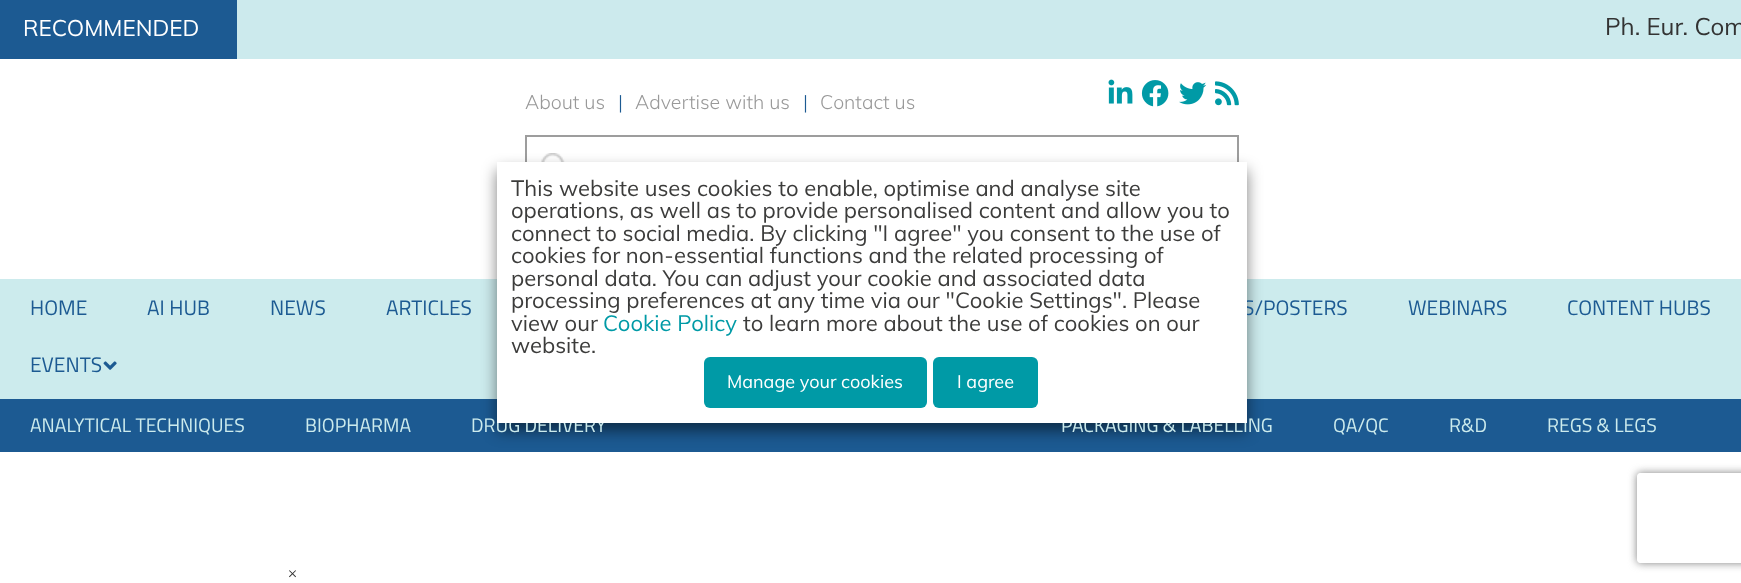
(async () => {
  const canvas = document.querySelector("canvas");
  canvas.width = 1741;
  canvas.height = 583;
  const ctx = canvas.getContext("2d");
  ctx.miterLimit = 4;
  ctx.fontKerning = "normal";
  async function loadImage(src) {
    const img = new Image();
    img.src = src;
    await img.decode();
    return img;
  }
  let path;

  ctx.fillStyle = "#ffffff";
  ctx.fillRect(0, 0, 1741, 583);
  ctx.fillStyle = "#cceaed";
  ctx.fillRect(237, 0, 1504, 59);
  ctx.fillStyle = "#1c5a92";
  ctx.fillRect(0, 0, 237, 59);
  ctx.drawImage(await loadImage("img/1.png"), 1108, 79, 25, 25);
  ctx.drawImage(await loadImage("img/2.png"), 1141, 80, 28, 27);
  ctx.drawImage(await loadImage("img/3.png"), 1179, 82, 28, 23);
  ctx.drawImage(await loadImage("img/4.png"), 1215, 81, 24, 25);
  ctx.drawImage(await loadImage("img/5.png"), 541, 153, 24, 9);
  ctx.strokeStyle = "#9d9d9d";
  ctx.lineWidth = 2;
  ctx.strokeRect(526, 136, 712, 64);
  ctx.fillStyle = "#ccebed";
  ctx.fillRect(0, 279, 1741, 120);
  ctx.fillStyle = "#1c5a92";
  ctx.fillRect(0, 399, 1741, 53);
  ctx.fillStyle = "rgba(0, 0, 0, 0.5)";
  ctx.filter = "blur(7.5px)";
  ctx.beginPath();
  ctx.rect(497, 170, 750, 261);
  ctx.fill();
  ctx.filter = "none";
  ctx.drawImage(await loadImage("img/6.png"), 103, 361, 14, 9);
  ctx.save();
  path = new Path2D("M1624 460H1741V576H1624ZM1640 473H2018C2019.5 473 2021 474.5 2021 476V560C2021 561.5 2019.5 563 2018 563H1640C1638.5 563 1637 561.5 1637 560V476C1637 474.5 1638.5 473 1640 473Z");
  ctx.clip(path, "evenodd");
  ctx.fillStyle = "#808080";
  ctx.filter = "blur(4px)";
  ctx.beginPath();
  ctx.roundRect(1637, 473, 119, 90, 3);
  ctx.fill();
  ctx.filter = "none";
  ctx.restore();
  ctx.font = "22.5px Muli";
  ctx.fillStyle = "#ffffff";
  ctx.fillText("RECOMMENDED", 23, 36);
  ctx.font = "24px Muli";
  ctx.fillStyle = "#333333";
  ctx.fillText("Ph. Eur. Com", 1605, 35);
  ctx.font = "300 19.5px Muli";
  ctx.fillStyle = "#999999";
  ctx.fillText("About us", 525, 109);
  ctx.fillStyle = "#1c5a92";
  ctx.fillText("|", 618, 109);
  ctx.fillStyle = "#999999";
  ctx.fillText("Advertise with us", 635, 109);
  ctx.fillStyle = "#1c5a92";
  ctx.fillText("|", 803, 109);
  ctx.fillStyle = "#999999";
  ctx.fillText("Contact us", 820, 109);
  ctx.font = "21px Titillium Web";
  ctx.fillStyle = "#1c5a92";
  for (const [text, x, y] of [
    ["HOME", 30, 315],
    ["AI HUB", 147, 315],
    ["NEWS", 270, 315],
    ["ARTICLES", 386, 315],
    ["S/POSTERS", 1243, 315],
    ["WEBINARS", 1408, 315],
    ["CONTENT HUBS", 1567, 315],
    ["EVENTS", 30, 372],
  ]) {
    ctx.fillText(text, x, y);
  }
  ctx.font = "19.5px Titillium Web";
  ctx.fillStyle = "#ccebed";
  for (const [text, x, y] of [
    ["ANALYTICAL TECHNIQUES", 30, 432],
    ["BIOPHARMA", 305, 432],
    ["DRUG DELIVERY", 471, 432],
    ["PACKAGING & LABELLING", 1061, 432],
  ]) {
    ctx.fillText(text, x, y);
  }
  ctx.fillStyle = "#ffffff";
  ctx.fillRect(497, 162, 750, 261);
  ctx.fillStyle = "#009aa6";
  ctx.beginPath();
  ctx.roundRect(933, 357, 105, 51, 6);
  ctx.fill();
  ctx.font = "18px Muli";
  ctx.fillStyle = "#ffffff";
  ctx.fillText("I agree", 957, 388);
  ctx.fillStyle = "#009aa6";
  ctx.beginPath();
  ctx.roundRect(704, 357, 223, 51, 6);
  ctx.fill();
  ctx.fillStyle = "#ffffff";
  ctx.fillText("Manage your cookies", 727, 388);
  ctx.font = "22px Muli";
  ctx.fillStyle = "#3c3c3b";
  ctx.fillText("website.", 511, 353);
  ctx.fillText("to learn more about the use of cookies on our", 743, 331);
  ctx.fillStyle = "#009aa6";
  ctx.fillText("Cookie Policy", 603, 331);
  ctx.fillStyle = "#3c3c3b";
  for (const [text, x, y] of [
    ["view our", 511, 331],
    ["processing preferences at any time via our \"Cookie Settings\". Please", 511, 308],
    ["personal data. You can adjust your cookie and associated data", 511, 286],
    ["cookies for non-essential functions and the related processing of", 511, 263],
    ["connect to social media. By clicking \"I agree\" you consent to the use of", 511, 241],
    ["operations, as well as to provide personalised content and allow you to", 511, 218],
    ["This website uses cookies to enable, optimise and analyse site", 511, 196],
  ]) {
    ctx.fillText(text, x, y);
  }
  ctx.font = "19.5px Titillium Web";
  ctx.fillStyle = "#ccebed";
  for (const [text, x, y] of [
    ["QA/QC", 1333, 432],
    ["R&D", 1449, 432],
    ["REGS & LEGS", 1547, 432],
  ]) {
    ctx.fillText(text, x, y);
  }
  ctx.font = "15px Muli";
  ctx.fillStyle = "#333333";
  ctx.fillText("×", 288, 578);
})();
